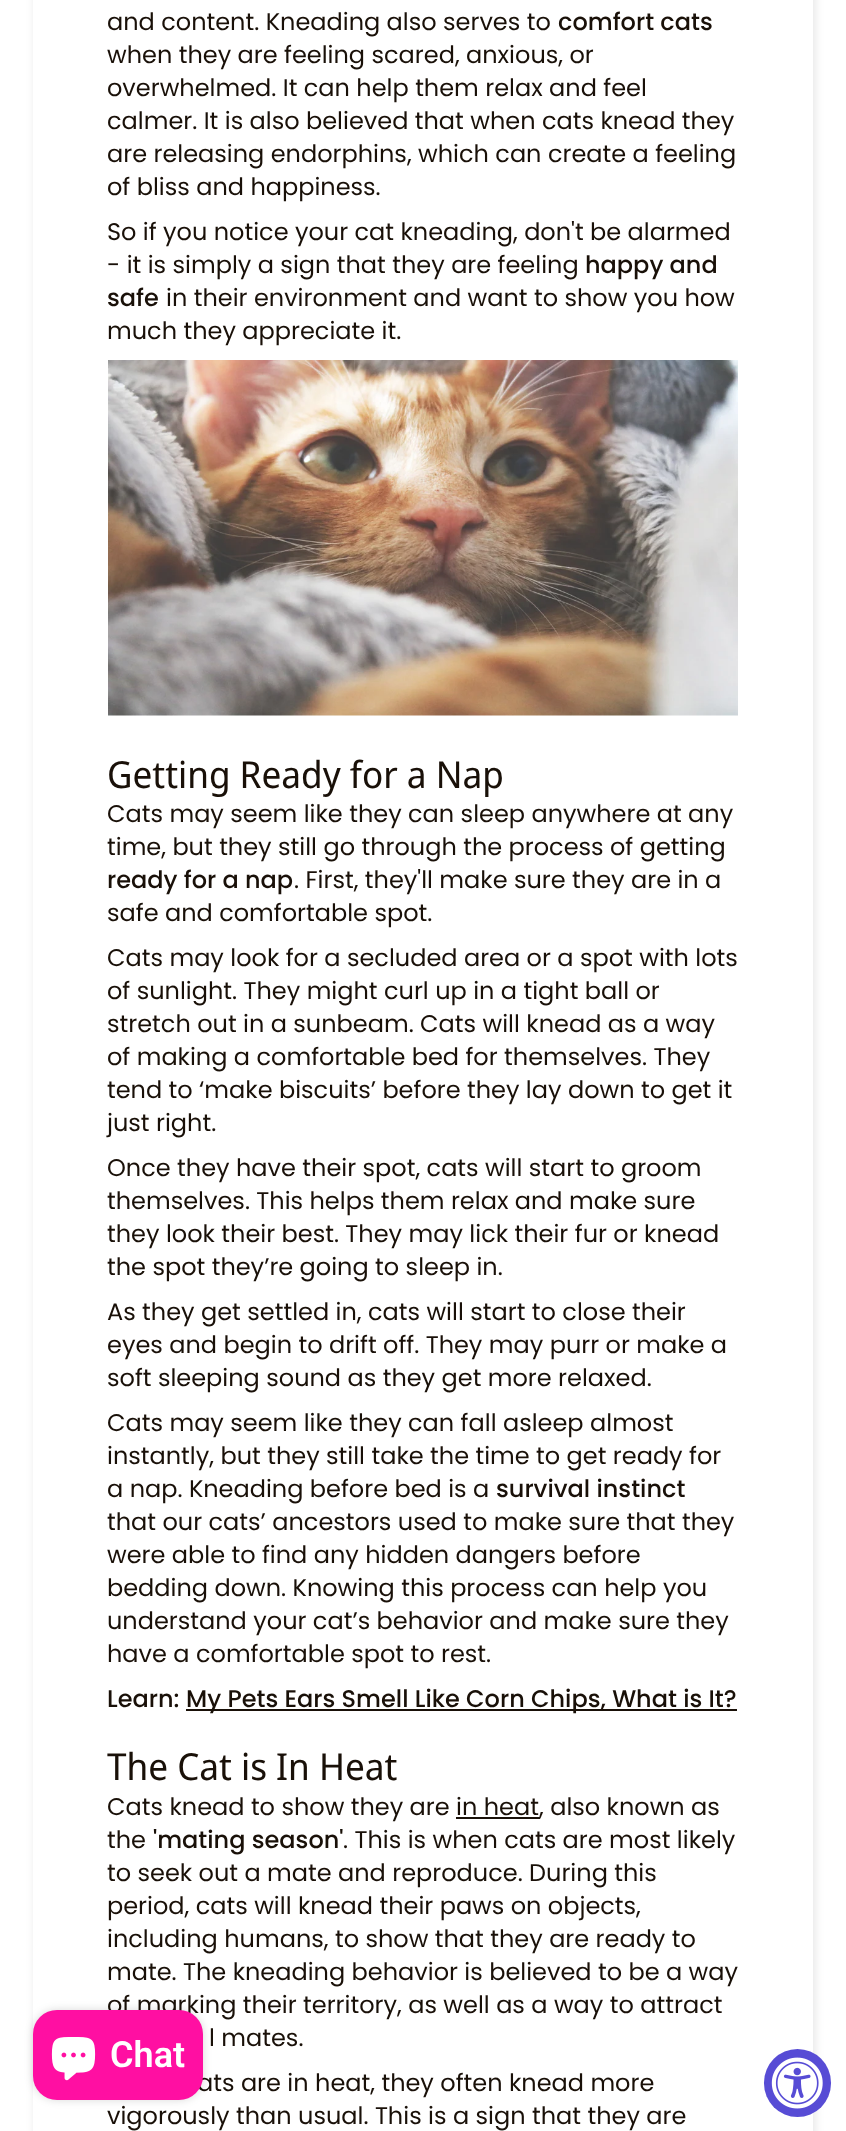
(async () => {
  const canvas = document.querySelector("canvas");
  canvas.width = 846;
  canvas.height = 2131;
  const ctx = canvas.getContext("2d");
  ctx.miterLimit = 4;
  ctx.fontKerning = "normal";
  async function loadImage(src) {
    const img = new Image();
    img.src = src;
    await img.decode();
    return img;
  }
  let path;

  ctx.fillStyle = "#ffffff";
  ctx.fillRect(0, 0, 846, 2131);
  ctx.save();
  path = new Path2D("M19 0H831V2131H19ZM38-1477H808C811-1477 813-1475 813-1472V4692C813 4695 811 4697 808 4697H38C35 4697 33 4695 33 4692V-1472C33-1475 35-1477 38-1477Z");
  ctx.clip(path, "evenodd");
  ctx.fillStyle = "rgba(0, 0, 0, 0.1)";
  ctx.filter = "blur(5px)";
  ctx.beginPath();
  ctx.roundRect(35, -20, 780, 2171, 5);
  ctx.fill();
  ctx.filter = "none";
  ctx.restore();
  ctx.drawImage(await loadImage("img/1.png"), 108, 360, 630, 356);
  ctx.fillStyle = "#191008";
  ctx.fillRect(186, 1709, 551, 2);
  ctx.fillRect(456, 1817, 84, 2);
  ctx.fillStyle = "rgba(0, 0, 0, 0.15)";
  ctx.filter = "blur(4px)";
  ctx.beginPath();
  ctx.roundRect(33, 2010, 170, 90, 24);
  ctx.fill();
  ctx.filter = "none";
  ctx.fillStyle = "#574cd5";
  ctx.beginPath();
  ctx.roundRect(764, 2049, 67, 68, 33.5);
  ctx.fill();
  ctx.drawImage(await loadImage("img/3.png"), 771, 2057, 52, 52);
  ctx.font = "24px Poppins";
  ctx.fillStyle = "#191008";
  ctx.fillText("and content. Kneading also serves to", 107, 30);
  ctx.font = "500 24px Poppins";
  ctx.fillText("comfort cats", 558, 30);
  ctx.font = "24px Poppins";
  for (const [text, x, y] of [
    ["when they are feeling scared, anxious, or", 107, 63],
    ["overwhelmed. It can help them relax and feel", 107, 96],
    ["calmer. It is also believed that when cats knead they", 107, 129],
    ["are releasing endorphins, which can create a feeling", 107, 162],
    ["of bliss and happiness.", 107, 195],
    ["So if you notice your cat kneading, don't be alarmed", 107, 240],
    ["- it is simply a sign that they are feeling", 107, 273],
  ]) {
    ctx.fillText(text, x, y);
  }
  ctx.font = "500 24px Poppins";
  ctx.fillText("happy and", 585, 273);
  ctx.fillText("safe", 107, 306);
  ctx.font = "24px Poppins";
  ctx.fillText("in their environment and want to show you how", 166, 306);
  ctx.fillText("much they appreciate it.", 107, 339);
  ctx.font = "37.25px Noto Sans Display";
  ctx.fillText("Getting Ready for a Nap", 107, 788);
  ctx.font = "24px Poppins";
  ctx.fillText("Cats may seem like they can sleep anywhere at any", 107, 822);
  ctx.fillText("time, but they still go through the process of getting", 107, 855);
  ctx.font = "500 24px Poppins";
  ctx.fillText("ready for a nap", 107, 888);
  ctx.font = "24px Poppins";
  for (const [text, x, y] of [
    [". First, they'll make sure they are in a", 294, 888],
    ["safe and comfortable spot.", 107, 921],
    ["Cats may look for a secluded area or a spot with lots", 107, 966],
    ["of sunlight. They might curl up in a tight ball or", 107, 999],
    ["stretch out in a sunbeam. Cats will knead as a way", 107, 1032],
    ["of making a comfortable bed for themselves. They", 107, 1065],
    ["tend to ‘make biscuits’ before they lay down to get it", 107, 1098],
    ["just right.", 107, 1131],
    ["Once they have their spot, cats will start to groom", 107, 1176],
    ["themselves. This helps them relax and make sure", 107, 1209],
    ["they look their best. They may lick their fur or knead", 107, 1242],
    ["the spot they’re going to sleep in.", 107, 1275],
    ["As they get settled in, cats will start to close their", 107, 1320],
    ["eyes and begin to drift off. They may purr or make a", 107, 1353],
    ["soft sleeping sound as they get more relaxed.", 107, 1386],
    ["Cats may seem like they can fall asleep almost", 107, 1431],
    ["instantly, but they still take the time to get ready for", 107, 1464],
    ["a nap. Kneading before bed is a", 107, 1497],
  ]) {
    ctx.fillText(text, x, y);
  }
  ctx.font = "500 24px Poppins";
  ctx.fillText("survival instinct", 496, 1497);
  ctx.font = "24px Poppins";
  for (const [text, x, y] of [
    ["that our cats’ ancestors used to make sure that they", 107, 1530],
    ["were able to find any hidden dangers before", 107, 1563],
    ["bedding down. Knowing this process can help you", 107, 1596],
    ["understand your cat’s behavior and make sure they", 107, 1629],
    ["have a comfortable spot to rest.", 107, 1662],
  ]) {
    ctx.fillText(text, x, y);
  }
  ctx.font = "500 24px Poppins";
  ctx.fillText("Learn:", 107, 1707);
  ctx.fillText("My Pets Ears Smell Like Corn Chips, What is It?", 186, 1707);
  ctx.font = "37.25px Noto Sans Display";
  ctx.fillText("The Cat is In Heat", 107, 1780);
  ctx.font = "24px Poppins";
  for (const [text, x, y] of [
    ["Cats knead to show they are in heat", 107, 1815],
    [", also known as", 539, 1815],
    ["the", 107, 1848],
  ]) {
    ctx.fillText(text, x, y);
  }
  ctx.font = "500 24px Poppins";
  ctx.fillText("'mating season'", 153, 1848);
  ctx.font = "24px Poppins";
  for (const [text, x, y] of [
    [". This is when cats are most likely", 343, 1848],
    ["to seek out a mate and reproduce. During this", 107, 1881],
    ["period, cats will knead their paws on objects,", 107, 1914],
    ["including humans, to show that they are ready to", 107, 1947],
    ["mate. The kneading behavior is believed to be a way", 107, 1980],
    ["of marking their territory, as well as a way to attract", 107, 2013],
    ["l mates.", 209, 2046],
    ["ats are in heat, they often knead more", 197, 2091],
    ["vigorously than usual. This is a sign that they are", 107, 2124],
  ]) {
    ctx.fillText(text, x, y);
  }
  ctx.fillStyle = "#ff0fa2";
  ctx.beginPath();
  ctx.roundRect(33, 2010, 170, 90, 24);
  ctx.fill();
  ctx.drawImage(await loadImage("img/2.png"), 51, 2037, 45, 44);
  ctx.font = "600 36px Roboto";
  ctx.fillStyle = "#ffffff";
  ctx.fillText("Chat", 110, 2067);
})();
